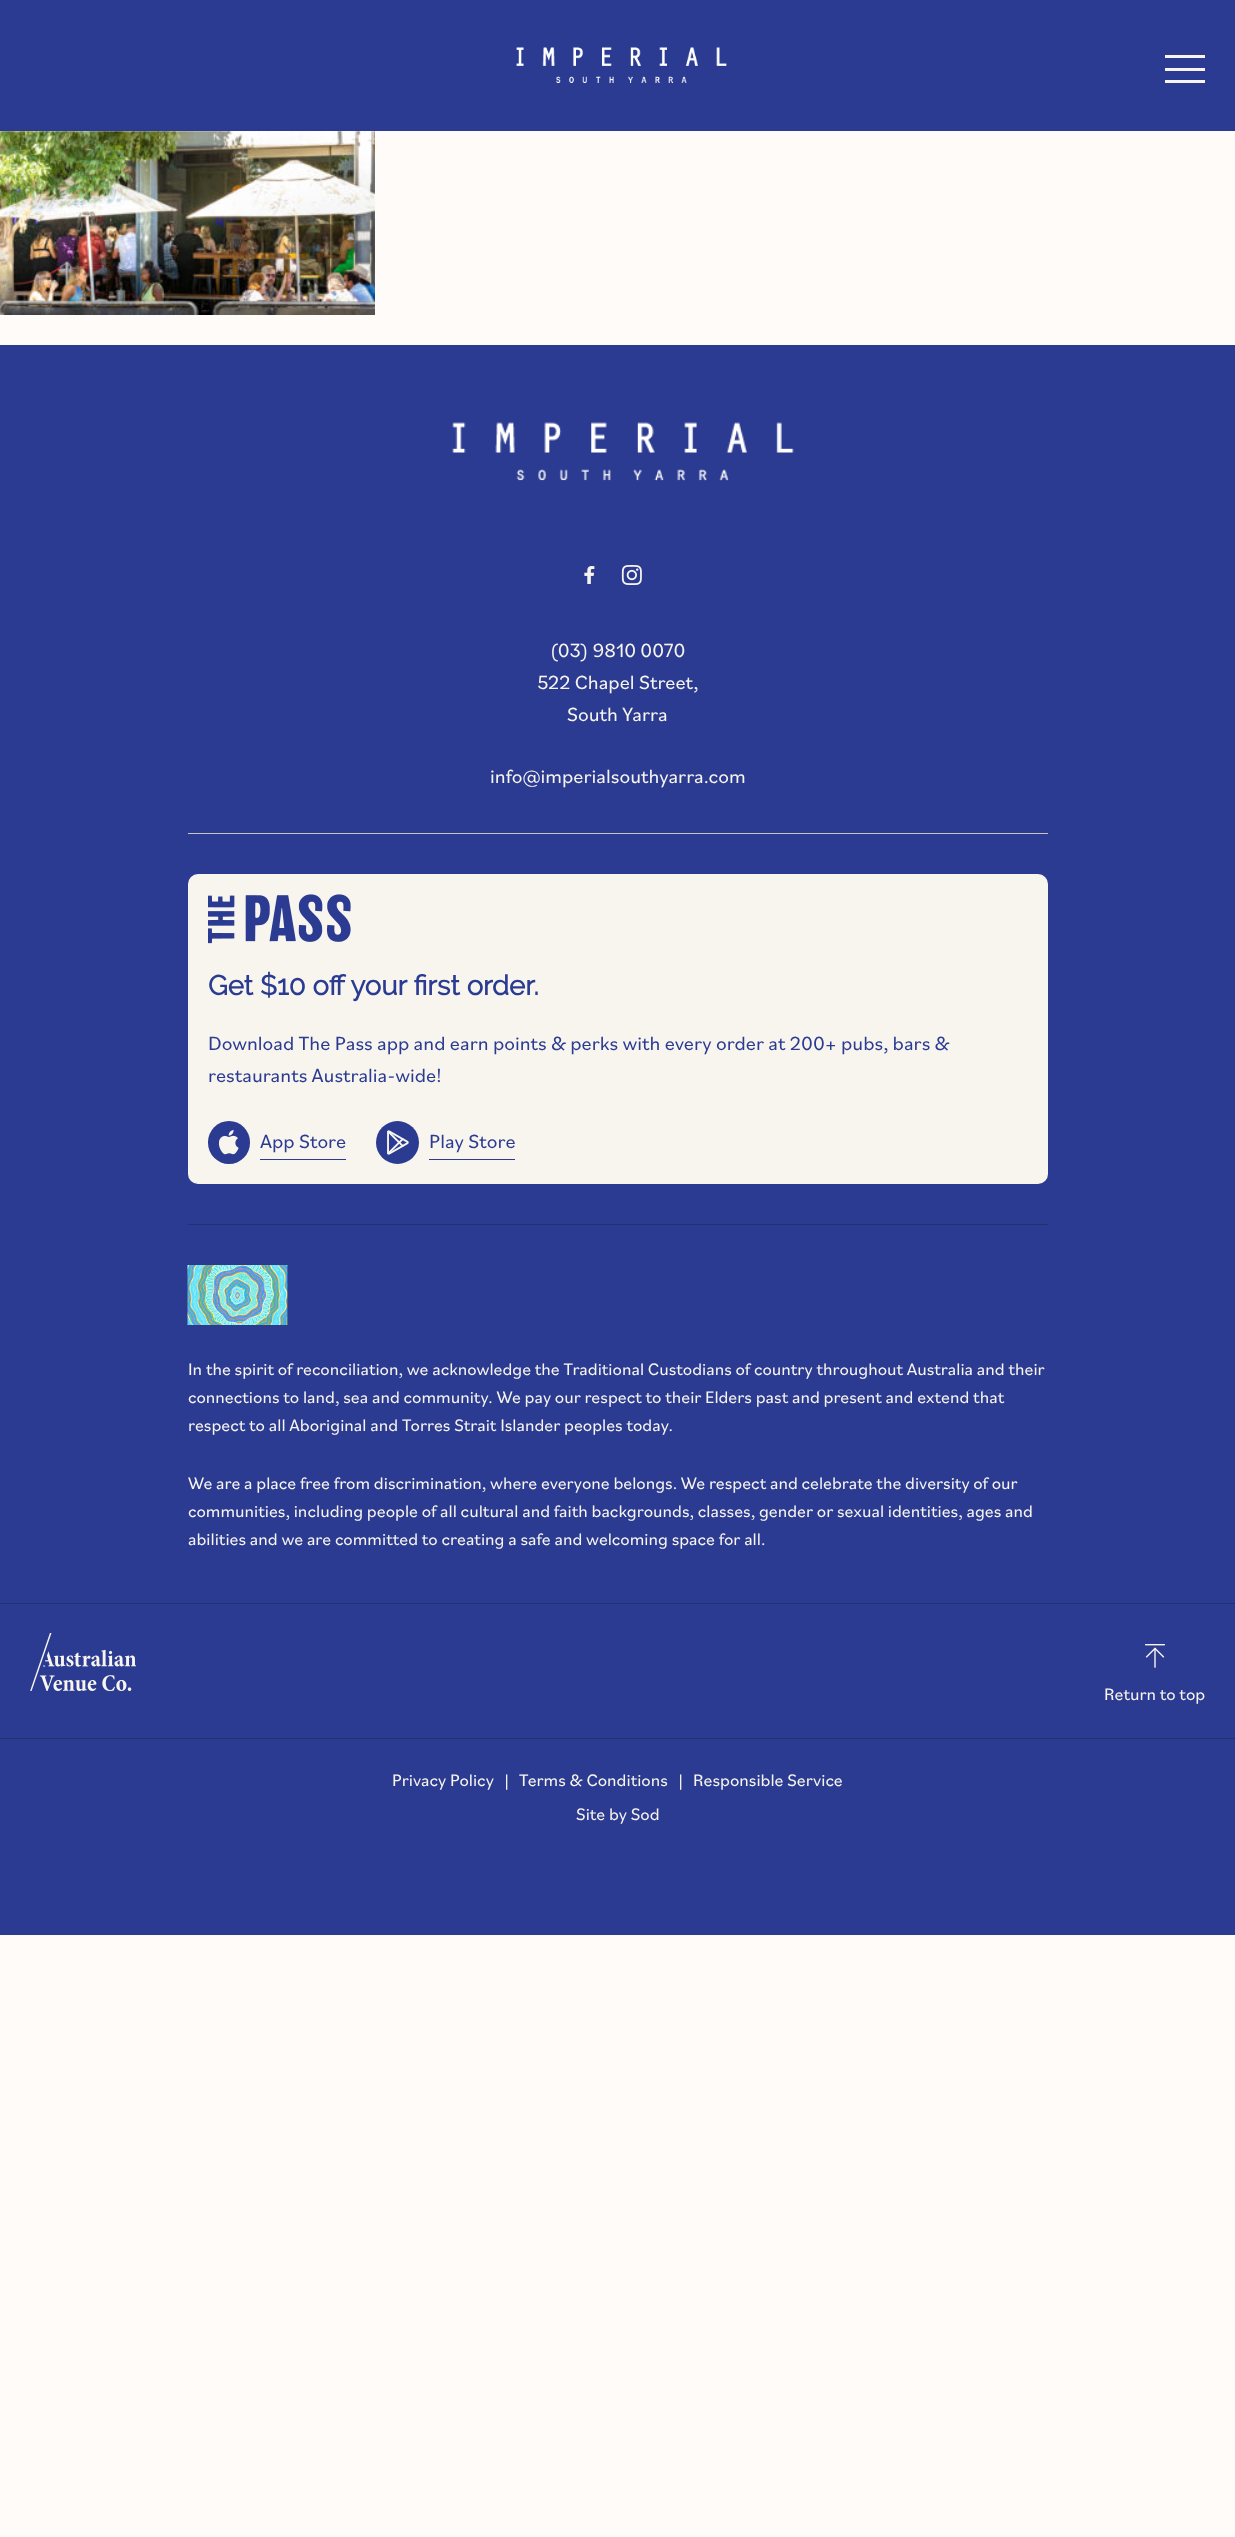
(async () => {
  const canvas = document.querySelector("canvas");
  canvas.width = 1235;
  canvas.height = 2537;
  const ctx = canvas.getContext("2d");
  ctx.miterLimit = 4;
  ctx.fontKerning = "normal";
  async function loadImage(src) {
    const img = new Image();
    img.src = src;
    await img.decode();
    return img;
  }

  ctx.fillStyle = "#fffbf8";
  ctx.fillRect(0, 0, 1235, 2537);
  ctx.fillStyle = "#2b3b92";
  ctx.fillRect(0, 0, 1235, 131);
  ctx.drawImage(await loadImage("img/1.png"), 516, 47, 211, 37);
  for (const [x, y, w, h, color] of [
    [1165, 68, 40, 3, "#f8f5ee"],
    [1165, 55, 40, 3, "#f8f5ee"],
    [1165, 80, 40, 3, "#f8f5ee"],
  ]) {
    ctx.fillStyle = color;
    ctx.fillRect(x, y, w, h);
  }
  ctx.drawImage(await loadImage("img/2.png"), 0, 131, 375, 184);
  ctx.fillStyle = "#2b3b92";
  ctx.fillRect(0, 345, 1235, 1258);
  ctx.drawImage(await loadImage("img/3.png"), 452, 422, 342, 59);
  ctx.drawImage(await loadImage("img/4.png"), 584, 566, 11, 18);
  ctx.drawImage(await loadImage("img/5.png"), 621, 565, 21, 20);
  ctx.fillStyle = "#c9c6c0";
  ctx.fillRect(188, 833, 860, 1);
  ctx.fillStyle = "#f8f5ee";
  ctx.beginPath();
  ctx.roundRect(188, 874, 860, 310, 10);
  ctx.fill();
  ctx.drawImage(await loadImage("img/6.png"), 208, 894, 143, 50);
  ctx.fillStyle = "#2b3b92";
  ctx.beginPath();
  ctx.roundRect(208, 1121, 42, 43, 21);
  ctx.fill();
  ctx.drawImage(await loadImage("img/7.png"), 219, 1130, 20, 25);
  ctx.fillRect(260, 1159, 86, 1);
  ctx.beginPath();
  ctx.arc(397.5, 1142.5, 21.5, 0, Math.PI * 2);
  ctx.fill();
  ctx.drawImage(await loadImage("img/8.png"), 387, 1130, 22, 25);
  ctx.fillRect(429, 1159, 86, 1);
  ctx.fillStyle = "#25316d";
  ctx.fillRect(188, 1224, 860, 1);
  ctx.drawImage(await loadImage("img/9.png"), 187, 1265, 101, 60);
  ctx.fillStyle = "#2b3b92";
  ctx.fillRect(0, 1604, 1235, 331);
  ctx.fillStyle = "#25316d";
  ctx.fillRect(0, 1603, 1235, 1);
  ctx.drawImage(await loadImage("img/10.png"), 30, 1633, 106, 58);
  ctx.drawImage(await loadImage("img/11.png"), 1145, 1644, 20, 24);
  ctx.fillRect(0, 1738, 1235, 1);
  ctx.font = "20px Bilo";
  ctx.fillStyle = "#f8f5ee";
  for (const [text, x, y] of [
    ["(03) 9810 0070", 550, 657],
    ["522 Chapel Street,", 537, 689],
    ["South Yarra", 567, 721],
    ["info@imperialsouthyarra.com", 490, 783],
  ]) {
    ctx.fillText(text, x, y);
  }
  ctx.font = "bold 27.5px Raleway";
  ctx.fillStyle = "#2b3b92";
  ctx.fillText("Get $10 off your first order.", 208, 995);
  ctx.font = "20px Bilo";
  for (const [text, x, y] of [
    ["Download The Pass app and earn points & perks with every order at 200+ pubs, bars &", 208, 1050],
    ["restaurants Australia-wide!", 208, 1082],
    ["App Store", 260, 1148],
    ["Play Store", 429, 1148],
  ]) {
    ctx.fillText(text, x, y);
  }
  ctx.font = "17.5px Bilo";
  ctx.fillStyle = "#f8f5ee";
  for (const [text, x, y] of [
    ["In the spirit of reconciliation, we acknowledge the Traditional Custodians of country throughout Australia and their", 188, 1375],
    ["connections to land, sea and community. We pay our respect to their Elders past and present and extend that", 188, 1403],
    ["respect to all Aboriginal and Torres Strait Islander peoples today.", 188, 1431],
    ["We are a place free from discrimination, where everyone belongs. We respect and celebrate the diversity of our", 188, 1489],
    ["communities, including people of all cultural and faith backgrounds, classes, gender or sexual identities, ages and", 188, 1517],
    ["abilities and we are committed to creating a safe and welcoming space for all.", 188, 1545],
    ["Return to top", 1104, 1700],
    ["Privacy Policy", 392, 1786],
    ["|", 504, 1786],
    ["Terms & Conditions", 519, 1786],
    ["|", 678, 1786],
    ["Responsible Service", 693, 1786],
    ["Site by Sod", 576, 1820],
  ]) {
    ctx.fillText(text, x, y);
  }
})();
